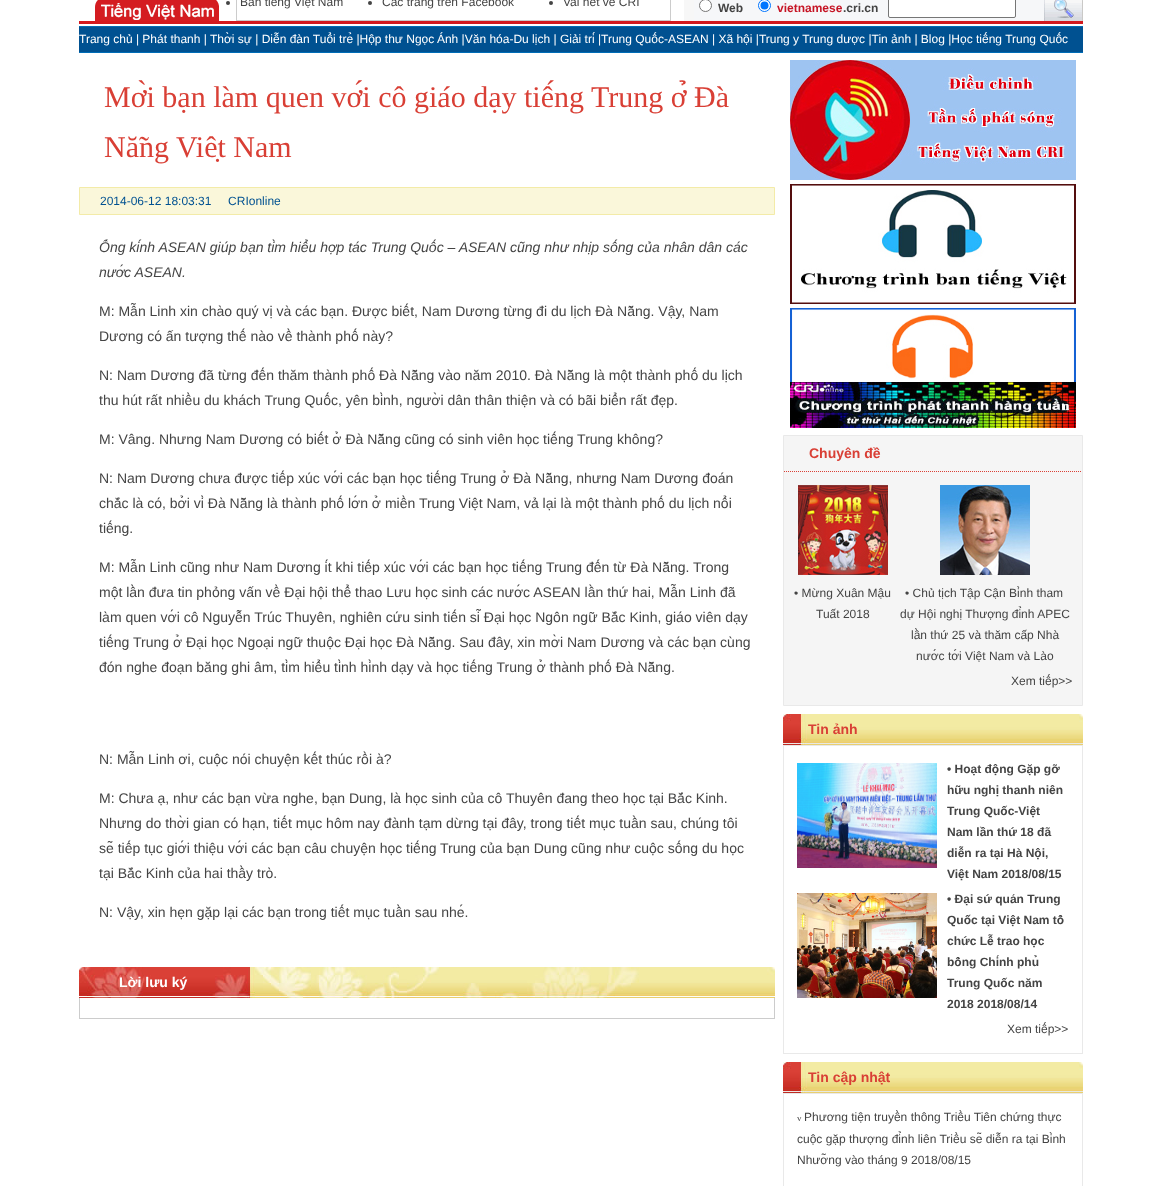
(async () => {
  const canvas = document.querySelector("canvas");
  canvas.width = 1161;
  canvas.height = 1186;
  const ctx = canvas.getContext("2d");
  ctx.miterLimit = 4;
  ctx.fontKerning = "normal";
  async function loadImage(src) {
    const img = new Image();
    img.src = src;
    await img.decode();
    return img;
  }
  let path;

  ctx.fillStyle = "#ffffff";
  ctx.fillRect(0, 0, 1161, 1186);
  ctx.drawImage(await loadImage("img/1.png"), 95, 0, 124, 21);
  ctx.strokeStyle = "#cccccc";
  ctx.strokeRect(236.5, -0.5, 434, 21);
  ctx.fillStyle = "#444444";
  ctx.beginPath();
  ctx.arc(228, 3, 2, 0, Math.PI * 2);
  ctx.fill();
  ctx.beginPath();
  ctx.arc(370, 3, 2, 0, Math.PI * 2);
  ctx.fill();
  ctx.beginPath();
  ctx.arc(551, 3, 2, 0, Math.PI * 2);
  ctx.fill();
  ctx.fillStyle = "#f7f7f7";
  ctx.fillRect(684, 0, 10, 21);
  ctx.fillStyle = "#f6f7f9";
  ctx.fillRect(694, 0, 350, 21);
  ctx.fillStyle = "#ffffff";
  ctx.beginPath();
  ctx.arc(705.5, 5.5, 6, 0, Math.PI * 2);
  ctx.fill();
  ctx.strokeStyle = "#767676";
  ctx.stroke();
  ctx.beginPath();
  ctx.arc(764.5, 5.5, 6, 0, Math.PI * 2);
  ctx.fill();
  ctx.strokeStyle = "#0075ff";
  ctx.stroke();
  ctx.fillStyle = "#0075ff";
  ctx.beginPath();
  ctx.arc(764.5, 5.5, 4, 0, Math.PI * 2);
  ctx.fill();
  ctx.fillStyle = "#ffffff";
  ctx.beginPath();
  ctx.roundRect(888.5, -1.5, 127, 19, 1.5);
  ctx.fill();
  ctx.strokeStyle = "#767676";
  ctx.stroke();
  ctx.drawImage(await loadImage("img/2.png"), 1044, 0, 39, 21);
  for (const [x, y, w, h, color] of [
    [79, 21, 1004, 3, "#d3191e"],
    [79, 26, 1004, 1, "#006db7"],
    [79, 27, 1004, 25, "#005191"],
    [79, 52, 1004, 1, "#006db7"],
  ]) {
    ctx.fillStyle = color;
    ctx.fillRect(x, y, w, h);
  }
  ctx.fillStyle = "#faf7da";
  ctx.beginPath();
  ctx.rect(79.5, 187.5, 695, 27);
  ctx.fill();
  ctx.strokeStyle = "#f3eba8";
  ctx.stroke();
  ctx.drawImage(await loadImage("img/3.png"), 79, 967, 696, 31);
  for (const [x, y, w, h, color] of [
    [774, 998, 1, 21, "#cccccc"],
    [79, 1018, 696, 1, "#cccccc"],
    [79, 998, 1, 21, "#cccccc"],
  ]) {
    ctx.fillStyle = color;
    ctx.fillRect(x, y, w, h);
  }
  ctx.drawImage(await loadImage("img/4.png"), 790, 60, 286, 120);
  ctx.drawImage(await loadImage("img/5.png"), 790, 184, 286, 120);
  ctx.drawImage(await loadImage("img/6.png"), 790, 308, 286, 120);
  ctx.fillStyle = "#f5f5f5";
  ctx.beginPath();
  ctx.rect(783.5, 435.5, 299, 270);
  ctx.fill();
  ctx.strokeStyle = "#e9e9e9";
  ctx.stroke();
  path = new Path2D("M784 471.5H1082");
  ctx.strokeStyle = "#da4036";
  ctx.setLineDash([1, 1]);
  ctx.stroke(path);
  ctx.drawImage(await loadImage("img/7.png"), 798, 485, 90, 90);
  ctx.drawImage(await loadImage("img/8.png"), 940, 485, 90, 90);
  ctx.drawImage(await loadImage("img/9.png"), 783, 714, 300, 31);
  ctx.strokeStyle = "#e9e9e9";
  ctx.setLineDash([]);
  ctx.strokeRect(783.5, 745.5, 299, 308);
  ctx.drawImage(await loadImage("img/10.png"), 797, 763, 140, 105);
  ctx.drawImage(await loadImage("img/11.png"), 797, 893, 140, 105);
  ctx.drawImage(await loadImage("img/9.png"), 783, 1062, 300, 31);
  ctx.strokeRect(783.5, 1093.5, 299, 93);
  ctx.font = "12px Liberation Sans";
  ctx.fillStyle = "#444444";
  for (const [text, x, y] of [
    ["Ban tiếng Việt Nam", 240, 6],
    ["Các trang trên Facebook", 382, 6],
    ["Vài nét về CRI", 563, 6],
  ]) {
    ctx.fillText(text, x, y);
  }
  ctx.font = "bold 12px Liberation Sans";
  ctx.fillText("Web", 718, 12);
  ctx.fillStyle = "#c61525";
  ctx.fillText("vietnamese", 777, 12);
  ctx.fillStyle = "#444444";
  ctx.fillText(".cri.cn", 843, 12);
  ctx.font = "12px Liberation Sans";
  ctx.fillStyle = "#ffffff";
  ctx.fillText("Trang chủ | Phát thanh | Thời sự | Diễn đàn Tuổi trẻ |Hộp thư Ngọc Ánh |Văn hóa-Du lịch | Giải trí |Trung Quốc-ASEAN | Xã hội |Trung y Trung dược |Tin ảnh | Blog |Học tiếng Trung Quốc", 79, 43);
  ctx.font = "30px Liberation Serif";
  ctx.fillStyle = "#d93f35";
  ctx.fillText("Mời bạn làm quen với cô giáo dạy tiếng Trung ở Đà", 104, 107);
  ctx.fillText("Nẵng Việt Nam", 104, 157);
  ctx.font = "12px Liberation Sans";
  ctx.fillStyle = "#005191";
  ctx.fillText("2014-06-12 18:03:31     CRIonline", 100, 205);
  ctx.font = "italic 14px Liberation Sans";
  ctx.fillStyle = "#444444";
  ctx.fillText("Ống kính ASEAN giúp bạn tìm hiểu hợp tác Trung Quốc – ASEAN cũng như nhịp sống của nhân dân các", 99, 252);
  ctx.fillText("nước ASEAN.", 99, 277);
  ctx.font = "14px Liberation Sans";
  for (const [text, x, y] of [
    ["M: Mẫn Linh xin chào quý vị và các bạn. Được biết, Nam Dương từng đi du lịch Đà Nẵng. Vậy, Nam", 99, 316],
    ["Dương có ấn tượng thế nào về thành phố này?", 99, 341],
    ["N: Nam Dương đã từng đến thăm thành phố Đà Nẵng vào năm 2010. Đà Nẵng là một thành phố du lịch", 99, 380],
    ["thu hút rất nhiều du khách Trung Quốc, yên bình, người dân thân thiện và có bãi biển rất đẹp.", 99, 405],
    ["M: Vâng. Nhưng Nam Dương có biết ở Đà Nẵng cũng có sinh viên học tiếng Trung không?", 99, 444],
    ["N: Nam Dương chưa được tiếp xúc với các bạn học tiếng Trung ở Đà Nẵng, nhưng Nam Dương đoán", 99, 483],
    ["chắc là có, bởi vì Đà Nẵng là thành phố lớn ở miền Trung Việt Nam, vả lại là một thành phố du lịch nổi", 99, 508],
    ["tiếng.", 99, 533],
    ["M: Mẫn Linh cũng như Nam Dương ít khi tiếp xúc với các bạn học tiếng Trung đến từ Đà Nẵng. Trong", 99, 572],
    ["một lần đưa tin phỏng vấn về Đại hội thể thao Lưu học sinh các nước ASEAN lần thứ hai, Mẫn Linh đã", 99, 597],
    ["làm quen với cô Nguyễn Trúc Thuyên, nghiên cứu sinh tiến sĩ Đại học Ngôn ngữ Bắc Kinh, giáo viên dạy", 99, 622],
    ["tiếng Trung ở Đại học Ngoại ngữ thuộc Đại học Đà Nẵng. Sau đây, xin mời Nam Dương và các bạn cùng", 99, 647],
    ["đón nghe đoạn băng ghi âm, tìm hiểu tình hình dạy và học tiếng Trung ở thành phố Đà Nẵng.", 99, 672],
    ["N: Mẫn Linh ơi, cuộc nói chuyện kết thúc rồi à?", 99, 764],
    ["M: Chưa ạ, như các bạn vừa nghe, bạn Dung, là học sinh của cô Thuyên đang theo học tại Bắc Kinh.", 99, 803],
    ["Nhưng do thời gian có hạn, tiết mục hôm nay đành tạm dừng tại đây, trong tiết mục tuần sau, chúng tôi", 99, 828],
    ["sẽ tiếp tục giới thiệu với các bạn câu chuyện học tiếng Trung của bạn Dung cũng như cuộc sống du học", 99, 853],
    ["tại Bắc Kinh của hai thầy trò.", 99, 878],
    ["N: Vậy, xin hẹn gặp lại các bạn trong tiết mục tuần sau nhé.", 99, 917],
  ]) {
    ctx.fillText(text, x, y);
  }
  ctx.font = "bold 14px Liberation Sans";
  ctx.fillStyle = "#ffffff";
  ctx.fillText("Lời lưu ký", 119, 987);
  ctx.fillStyle = "#d93f35";
  ctx.fillText("Chuyên đề", 809, 458);
  ctx.font = "12px Liberation Sans";
  ctx.fillStyle = "#444444";
  for (const [text, x, y] of [
    ["• Mừng Xuân Mậu", 794, 597],
    ["Tuất 2018", 816, 618],
    ["• Chủ tịch Tập Cận Bình tham", 905, 597],
    ["dự Hội nghị Thượng đỉnh APEC", 900, 618],
    ["lần thứ 25 và thăm cấp Nhà", 911, 639],
    ["nước tới Việt Nam và Lào", 916, 660],
    ["Xem tiếp>>", 1011, 685],
  ]) {
    ctx.fillText(text, x, y);
  }
  ctx.font = "bold 14px Liberation Sans";
  ctx.fillStyle = "#d93f35";
  ctx.fillText("Tin ảnh", 808, 734);
  ctx.font = "bold 12px Liberation Sans";
  ctx.fillStyle = "#444444";
  for (const [text, x, y] of [
    ["• Hoạt động Gặp gỡ", 947, 773],
    ["hữu nghị thanh niên", 947, 794],
    ["Trung Quốc-Việt", 947, 815],
    ["Nam lần thứ 18 đã", 947, 836],
    ["diễn ra tại Hà Nội,", 947, 857],
    ["Việt Nam 2018/08/15", 947, 878],
    ["• Đại sứ quán Trung", 947, 903],
    ["Quốc tại Việt Nam tổ", 947, 924],
    ["chức Lễ trao học", 947, 945],
    ["bổng Chính phủ", 947, 966],
    ["Trung Quốc năm", 947, 987],
    ["2018 2018/08/14", 947, 1008],
  ]) {
    ctx.fillText(text, x, y);
  }
  ctx.font = "12px Liberation Sans";
  ctx.fillText("Xem tiếp>>", 1007, 1033);
  ctx.font = "bold 14px Liberation Sans";
  ctx.fillStyle = "#d93f35";
  ctx.fillText("Tin cập nhật", 808, 1082);
  ctx.font = "9px Liberation Serif";
  ctx.fillStyle = "#444444";
  ctx.fillText("v", 797, 1121);
  ctx.font = "12px Liberation Sans";
  for (const [text, x, y] of [
    ["Phương tiện truyền thông Triều Tiên chứng thực", 804, 1121],
    ["cuộc gặp thượng đỉnh liên Triều sẽ diễn ra tại Bình", 797, 1143],
    ["Nhưỡng vào tháng 9 2018/08/15", 797, 1164],
  ]) {
    ctx.fillText(text, x, y);
  }
})();
